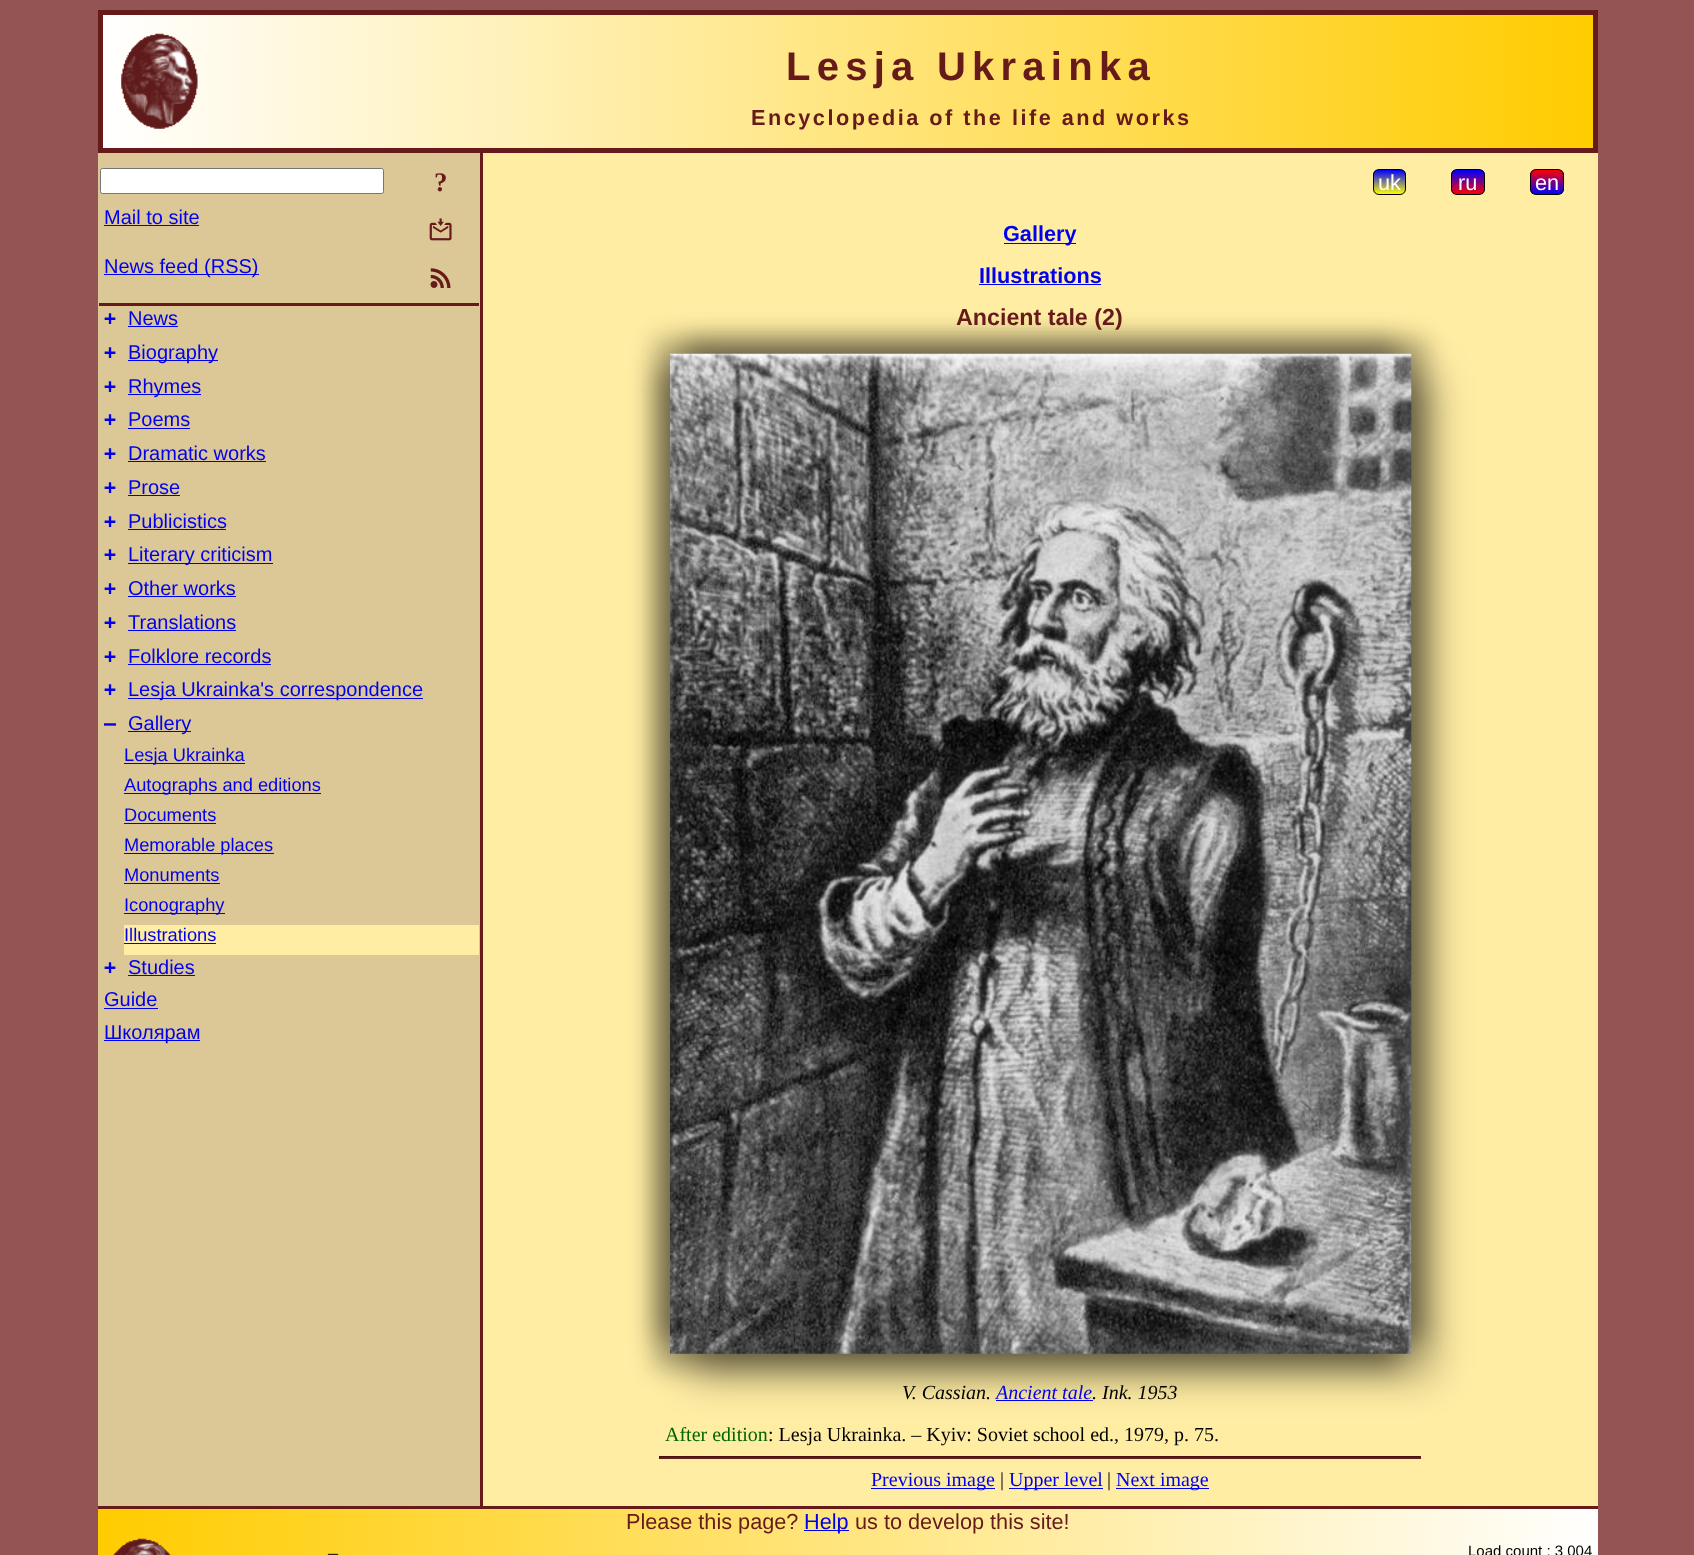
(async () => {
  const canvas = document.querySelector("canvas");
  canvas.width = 1694;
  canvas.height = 1555;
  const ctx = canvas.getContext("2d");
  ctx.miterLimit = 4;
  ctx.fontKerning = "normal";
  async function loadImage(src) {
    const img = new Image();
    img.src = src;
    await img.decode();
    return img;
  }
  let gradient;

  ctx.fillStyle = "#945454";
  ctx.fillRect(0, 0, 1694, 1555);
  ctx.fillStyle = "#661a1a";
  ctx.fillRect(98, 1506, 1500, 3);
  gradient = ctx.createLinearGradient(103, 81, 1593, 81);
  gradient.addColorStop(0, "#ffffff");
  gradient.addColorStop(1, "#ffcc00");
  ctx.fillStyle = gradient;
  ctx.fillRect(103, 15, 1490, 133);
  ctx.strokeStyle = "#661a1a";
  ctx.lineWidth = 5;
  ctx.strokeRect(100.5, 12.5, 1495, 138);
  ctx.drawImage(await loadImage("img/1.png"), 121, 33, 77, 96);
  for (const [x, y, w, h, color] of [
    [98, 153, 382, 1353, "#dcc896"],
    [480, 153, 3, 1353, "#661a1a"],
    [99, 303, 380, 3, "#661a1a"],
  ]) {
    ctx.fillStyle = color;
    ctx.fillRect(x, y, w, h);
  }
  ctx.fillStyle = "#ffffff";
  ctx.beginPath();
  ctx.roundRect(100.5, 168.5, 283, 25, 2);
  ctx.fill();
  ctx.strokeStyle = "#767676";
  ctx.lineWidth = 1;
  ctx.stroke();
  ctx.fillStyle = "#0000ee";
  ctx.fillRect(104, 225, 95, 1);
  ctx.drawImage(await loadImage("img/2.png"), 429, 218, 23, 23);
  ctx.fillRect(104, 274, 155, 1);
  ctx.drawImage(await loadImage("img/3.png"), 430, 268, 21, 20);
  for (const [x, y, w, h, color] of [
    [128, 326, 50, 1, "#0000ee"],
    [128, 360, 90, 1, "#0000ee"],
    [128, 394, 73, 1, "#0000ee"],
    [128, 428, 62, 1, "#0000ee"],
    [128, 461, 138, 1, "#0000ee"],
    [128, 495, 52, 1, "#0000ee"],
    [128, 529, 98, 1, "#0000ee"],
    [128, 563, 145, 1, "#0000ee"],
    [128, 596, 108, 1, "#0000ee"],
    [128, 630, 108, 1, "#0000ee"],
    [128, 664, 143, 1, "#0000ee"],
    [128, 698, 295, 1, "#0000ee"],
    [128, 731, 63, 1, "#0000ee"],
    [124, 763, 121, 1, "#0000ee"],
    [124, 793, 197, 1, "#0000ee"],
    [124, 823, 92, 1, "#0000ee"],
    [124, 853, 150, 1, "#0000ee"],
    [124, 883, 96, 1, "#0000ee"],
    [124, 913, 101, 1, "#0000ee"],
    [124, 925, 355, 30, "#ffeda4"],
    [124, 943, 92, 1, "#0000ee"],
    [128, 975, 67, 1, "#0000ee"],
    [104, 1008, 54, 1, "#0000ee"],
    [104, 1040, 96, 1, "#0000ee"],
    [483, 153, 1115, 1353, "#ffeda4"],
  ]) {
    ctx.fillStyle = color;
    ctx.fillRect(x, y, w, h);
  }
  ctx.save();
  ctx.beginPath();
  ctx.roundRect(1373, 169, 33, 26, 6);
  ctx.clip();
  gradient = ctx.createLinearGradient(1389, 170, 1389, 194);
  gradient.addColorStop(0, "#0000ff");
  gradient.addColorStop(1, "#ffff00");
  ctx.fillStyle = gradient;
  ctx.fillRect(1373, 170, 33, 24);
  ctx.restore();
  ctx.beginPath();
  ctx.roundRect(1373.5, 169.5, 32, 25, 5.5);
  ctx.strokeStyle = "#000000";
  ctx.stroke();
  ctx.save();
  ctx.beginPath();
  ctx.roundRect(1451, 169, 34, 26, 6);
  ctx.clip();
  gradient = ctx.createLinearGradient(1468, 170, 1468, 194);
  gradient.addColorStop(0, "#0000ff");
  gradient.addColorStop(1, "#ff0000");
  ctx.fillStyle = gradient;
  ctx.fillRect(1451, 170, 34, 24);
  ctx.restore();
  ctx.beginPath();
  ctx.roundRect(1451.5, 169.5, 33, 25, 5.5);
  ctx.stroke();
  ctx.save();
  ctx.beginPath();
  ctx.roundRect(1530, 169, 34, 26, 6);
  ctx.clip();
  gradient = ctx.createLinearGradient(1547, 170, 1547, 194);
  gradient.addColorStop(0, "#ff0000");
  gradient.addColorStop(1, "#0000ff");
  ctx.fillStyle = gradient;
  ctx.fillRect(1530, 170, 34, 24);
  ctx.restore();
  ctx.beginPath();
  ctx.roundRect(1530.5, 169.5, 33, 25, 5.5);
  ctx.stroke();
  ctx.fillStyle = "#0000ee";
  ctx.fillRect(1004, 243, 72, 1);
  ctx.fillRect(979, 284, 122, 1);
  ctx.fillStyle = "rgba(0, 0, 0, 0.4)";
  ctx.filter = "blur(20px)";
  ctx.beginPath();
  ctx.rect(690, 374, 741, 1000);
  ctx.fill();
  ctx.filter = "none";
  ctx.fillStyle = "rgba(0, 0, 0, 0.3)";
  ctx.filter = "blur(12.5px)";
  ctx.beginPath();
  ctx.rect(685, 339, 741, 1000);
  ctx.fill();
  ctx.filter = "none";
  ctx.filter = "blur(12.5px)";
  ctx.beginPath();
  ctx.rect(655, 369, 741, 1000);
  ctx.fill();
  ctx.filter = "none";
  ctx.filter = "blur(12.5px)";
  ctx.beginPath();
  ctx.rect(655, 339, 741, 1000);
  ctx.fill();
  ctx.filter = "none";
  ctx.drawImage(await loadImage("img/4.png"), 670, 353, 742, 1001);
  for (const [x, y, w, h, color] of [
    [996, 1400, 97, 1, "#0000ee"],
    [659, 1457, 762, 2, "#661a1a"],
    [659, 1456, 762, 1, "#441111"],
    [1420, 1456, 1, 3, "#661a1a"],
    [659, 1456, 1, 3, "#441111"],
    [871, 1488, 124, 1, "#0000ee"],
    [1009, 1488, 94, 1, "#0000ee"],
    [1116, 1488, 93, 1, "#0000ee"],
  ]) {
    ctx.fillStyle = color;
    ctx.fillRect(x, y, w, h);
  }
  gradient = ctx.createLinearGradient(98, 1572, 1598, 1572);
  gradient.addColorStop(0, "#ffcc00");
  gradient.addColorStop(1, "#ffffff");
  ctx.fillStyle = gradient;
  ctx.fillRect(98, 1509, 1500, 46);
  ctx.fillStyle = "#0000ee";
  ctx.fillRect(804, 1530, 45, 1);
  ctx.drawImage(await loadImage("img/5.png"), 113, 1538, 58, 17);
  ctx.letterSpacing = "6.25px";
  ctx.font = "bold 40px Liberation Sans";
  ctx.fillStyle = "#661a1a";
  ctx.fillText("Lesja Ukrainka", 786, 80);
  ctx.letterSpacing = "2.5px";
  ctx.font = "bold 21.7px Liberation Sans";
  ctx.fillText("Encyclopedia of the life and works", 751, 125);
  ctx.letterSpacing = "0px";
  ctx.font = "bold 27px Liberation Serif";
  ctx.fillText("?", 434, 191);
  ctx.font = "20px Liberation Sans";
  ctx.fillStyle = "#0000ee";
  ctx.fillText("Mail to site", 104, 224);
  ctx.fillText("News feed (RSS)", 104, 273);
  ctx.font = "bold 20px DejaVu Sans Mono";
  ctx.fillText("+", 104, 325);
  ctx.font = "20px Liberation Sans";
  ctx.fillText("News", 128, 325);
  ctx.font = "bold 20px DejaVu Sans Mono";
  ctx.fillText("+", 104, 359);
  ctx.font = "20px Liberation Sans";
  ctx.fillText("Biography", 128, 359);
  ctx.font = "bold 20px DejaVu Sans Mono";
  ctx.fillText("+", 104, 393);
  ctx.font = "20px Liberation Sans";
  ctx.fillText("Rhymes", 128, 393);
  ctx.font = "bold 20px DejaVu Sans Mono";
  ctx.fillText("+", 104, 426);
  ctx.font = "20px Liberation Sans";
  ctx.fillText("Poems", 128, 426);
  ctx.font = "bold 20px DejaVu Sans Mono";
  ctx.fillText("+", 104, 460);
  ctx.font = "20px Liberation Sans";
  ctx.fillText("Dramatic works", 128, 460);
  ctx.font = "bold 20px DejaVu Sans Mono";
  ctx.fillText("+", 104, 494);
  ctx.font = "20px Liberation Sans";
  ctx.fillText("Prose", 128, 494);
  ctx.font = "bold 20px DejaVu Sans Mono";
  ctx.fillText("+", 104, 528);
  ctx.font = "20px Liberation Sans";
  ctx.fillText("Publicistics", 128, 528);
  ctx.font = "bold 20px DejaVu Sans Mono";
  ctx.fillText("+", 104, 561);
  ctx.font = "20px Liberation Sans";
  ctx.fillText("Literary criticism", 128, 561);
  ctx.font = "bold 20px DejaVu Sans Mono";
  ctx.fillText("+", 104, 595);
  ctx.font = "20px Liberation Sans";
  ctx.fillText("Other works", 128, 595);
  ctx.font = "bold 20px DejaVu Sans Mono";
  ctx.fillText("+", 104, 629);
  ctx.font = "20px Liberation Sans";
  ctx.fillText("Translations", 128, 629);
  ctx.font = "bold 20px DejaVu Sans Mono";
  ctx.fillText("+", 104, 663);
  ctx.font = "20px Liberation Sans";
  ctx.fillText("Folklore records", 128, 663);
  ctx.font = "bold 20px DejaVu Sans Mono";
  ctx.fillText("+", 104, 696);
  ctx.font = "20px Liberation Sans";
  ctx.fillText("Lesja Ukrainka's correspondence", 128, 696);
  ctx.font = "bold 20px DejaVu Sans Mono";
  ctx.fillText("–", 104, 730);
  ctx.font = "20px Liberation Sans";
  ctx.fillText("Gallery", 128, 730);
  ctx.font = "18.25px Liberation Sans";
  for (const [text, x, y] of [
    ["Lesja Ukrainka", 124, 761],
    ["Autographs and editions", 124, 791],
    ["Documents", 124, 821],
    ["Memorable places", 124, 851],
    ["Monuments", 124, 881],
    ["Iconography", 124, 911],
    ["Illustrations", 124, 941],
  ]) {
    ctx.fillText(text, x, y);
  }
  ctx.font = "bold 20px DejaVu Sans Mono";
  ctx.fillText("+", 104, 974);
  ctx.font = "20px Liberation Sans";
  for (const [text, x, y] of [
    ["Studies", 128, 974],
    ["Guide", 104, 1006],
    ["Школярам", 104, 1039],
  ]) {
    ctx.fillText(text, x, y);
  }
  ctx.font = "21.7px Liberation Sans";
  ctx.fillStyle = "#ffffff";
  for (const [text, x, y] of [
    ["uk", 1378, 190],
    ["ru", 1458, 190],
    ["en", 1535, 190],
  ]) {
    ctx.fillText(text, x, y);
  }
  ctx.font = "bold 21.7px Liberation Sans";
  ctx.fillStyle = "#0000ee";
  ctx.fillText("Gallery", 1003, 241);
  ctx.fillText("Illustrations", 979, 283);
  ctx.font = "bold 23.25px Liberation Sans";
  ctx.fillStyle = "#661a1a";
  ctx.fillText("Ancient tale (2)", 956, 325);
  ctx.font = "italic 20px Liberation Serif";
  ctx.fillStyle = "#000000";
  ctx.fillText("V. Cassian.", 902, 1399);
  ctx.fillStyle = "#0000ee";
  ctx.fillText("Ancient tale", 996, 1399);
  ctx.fillStyle = "#000000";
  ctx.fillText(". Ink. 1953", 1092, 1399);
  ctx.font = "20px Liberation Serif";
  ctx.fillStyle = "#006600";
  ctx.fillText("After edition", 665, 1441);
  ctx.fillStyle = "#000000";
  ctx.fillText(": Lesja Ukrainka. – Kyiv: Soviet school ed., 1979, p. 75.", 768, 1441);
  ctx.fillStyle = "#0000ee";
  ctx.fillText("Previous image", 871, 1486);
  ctx.fillStyle = "#000000";
  ctx.fillText("|", 1000, 1486);
  ctx.fillStyle = "#0000ee";
  ctx.fillText("Upper level", 1009, 1486);
  ctx.fillStyle = "#000000";
  ctx.fillText("|", 1107, 1486);
  ctx.fillStyle = "#0000ee";
  ctx.fillText("Next image", 1116, 1486);
  ctx.font = "21.7px Liberation Sans";
  ctx.fillStyle = "#661a1a";
  ctx.fillText("Please this page?", 626, 1529);
  ctx.fillStyle = "#0000ee";
  ctx.fillText("Help", 804, 1529);
  ctx.fillStyle = "#661a1a";
  ctx.fillText("us to develop this site!", 855, 1529);
  ctx.font = "20px Liberation Serif";
  ctx.fillStyle = "#000000";
  ctx.fillText("–", 328, 1559);
  ctx.font = "15px Liberation Sans";
  ctx.fillText("Load count : 3 004", 1468, 1556);
})();
